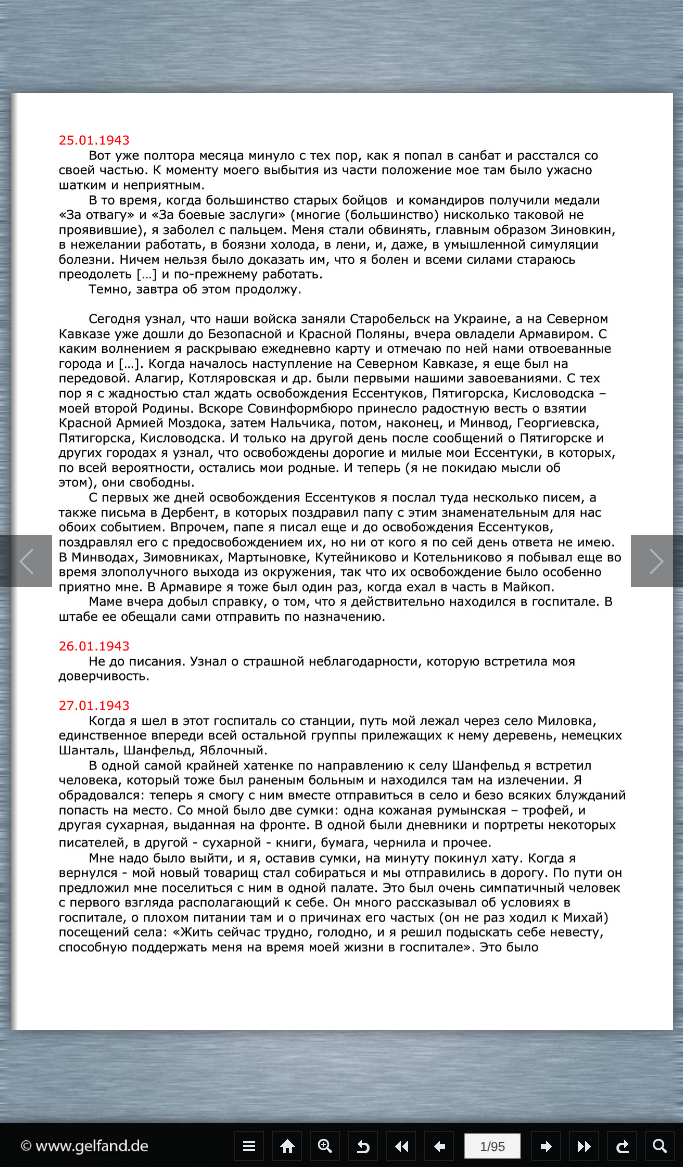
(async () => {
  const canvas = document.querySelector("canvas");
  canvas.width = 683;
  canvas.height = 1167;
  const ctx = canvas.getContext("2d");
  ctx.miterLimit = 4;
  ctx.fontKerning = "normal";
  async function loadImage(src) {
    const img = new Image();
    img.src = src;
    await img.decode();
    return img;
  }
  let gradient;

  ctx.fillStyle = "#ffffff";
  ctx.fillRect(0, 0, 683, 1167);
  ctx.drawImage(await loadImage("img/1.png"), 0, 0, 683, 1167);
  ctx.fillStyle = "rgba(40, 40, 40, 0.7)";
  ctx.filter = "blur(7.5px)";
  ctx.beginPath();
  ctx.rect(11, 93, 662, 937);
  ctx.fill();
  ctx.filter = "none";
  gradient = ctx.createLinearGradient(11, 562, 18, 562);
  gradient.addColorStop(0, "#8a8a8a");
  gradient.addColorStop(1, "#ffffff");
  ctx.fillStyle = gradient;
  ctx.fillRect(11, 93, 7, 937);
  ctx.fillStyle = "#ffffff";
  ctx.fillRect(18, 93, 655, 937);
  ctx.drawImage(await loadImage("img/2.png"), 57, 135, 568, 820);
  ctx.drawImage(await loadImage("img/3.png"), 0, 535, 52, 52);
  ctx.drawImage(await loadImage("img/4.png"), 631, 535, 52, 52);
  ctx.save();
  ctx.beginPath();
  ctx.rect(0, 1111, 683, 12);
  ctx.clip();
  ctx.fillStyle = "rgba(40, 40, 40, 0.95)";
  ctx.filter = "blur(6px)";
  ctx.beginPath();
  ctx.rect(0, 1123, 683, 44);
  ctx.fill();
  ctx.filter = "none";
  ctx.restore();
  ctx.fillStyle = "rgba(0, 0, 0, 0.95)";
  ctx.fillRect(0, 1123, 683, 44);
  ctx.drawImage(await loadImage("img/5.png"), 20, 1139, 128, 16);
  ctx.strokeStyle = "#1f1f20";
  ctx.strokeRect(234.5, 1131.5, 29, 29);
  ctx.drawImage(await loadImage("img/6.png"), 243, 1141, 12, 10);
  ctx.strokeRect(272.5, 1131.5, 29, 29);
  ctx.drawImage(await loadImage("img/7.png"), 280, 1139, 15, 14);
  ctx.strokeRect(310.5, 1131.5, 29, 29);
  ctx.drawImage(await loadImage("img/8.png"), 318, 1139, 14, 14);
  ctx.strokeRect(348.5, 1131.5, 29, 29);
  ctx.drawImage(await loadImage("img/9.png"), 357, 1140, 13, 13);
  ctx.strokeRect(386.5, 1131.5, 29, 29);
  ctx.drawImage(await loadImage("img/10.png"), 395, 1141, 13, 11);
  ctx.strokeRect(424.5, 1131.5, 29, 29);
  ctx.drawImage(await loadImage("img/11.png"), 434, 1141, 11, 11);
  ctx.fillStyle = "#f3f3f3";
  ctx.beginPath();
  ctx.roundRect(464, 1133, 57, 26, 2);
  ctx.fill();
  ctx.beginPath();
  ctx.roundRect(464.5, 1133.5, 56, 25, 1.5);
  ctx.strokeStyle = "rgba(118, 118, 118, 0.95)";
  ctx.stroke();
  ctx.strokeStyle = "#1e1f20";
  ctx.strokeRect(531.5, 1131.5, 29, 29);
  ctx.drawImage(await loadImage("img/12.png"), 541, 1141, 11, 11);
  ctx.strokeRect(569.5, 1131.5, 29, 29);
  ctx.drawImage(await loadImage("img/13.png"), 578, 1141, 13, 11);
  ctx.strokeRect(607.5, 1131.5, 29, 29);
  ctx.drawImage(await loadImage("img/14.png"), 616, 1140, 13, 13);
  ctx.strokeRect(645.5, 1131.5, 29, 29);
  ctx.drawImage(await loadImage("img/15.png"), 653, 1139, 14, 14);
  ctx.font = "13px Liberation Sans";
  ctx.fillStyle = "#3d3d3d";
  ctx.fillText("1/95", 480, 1151);
})();
